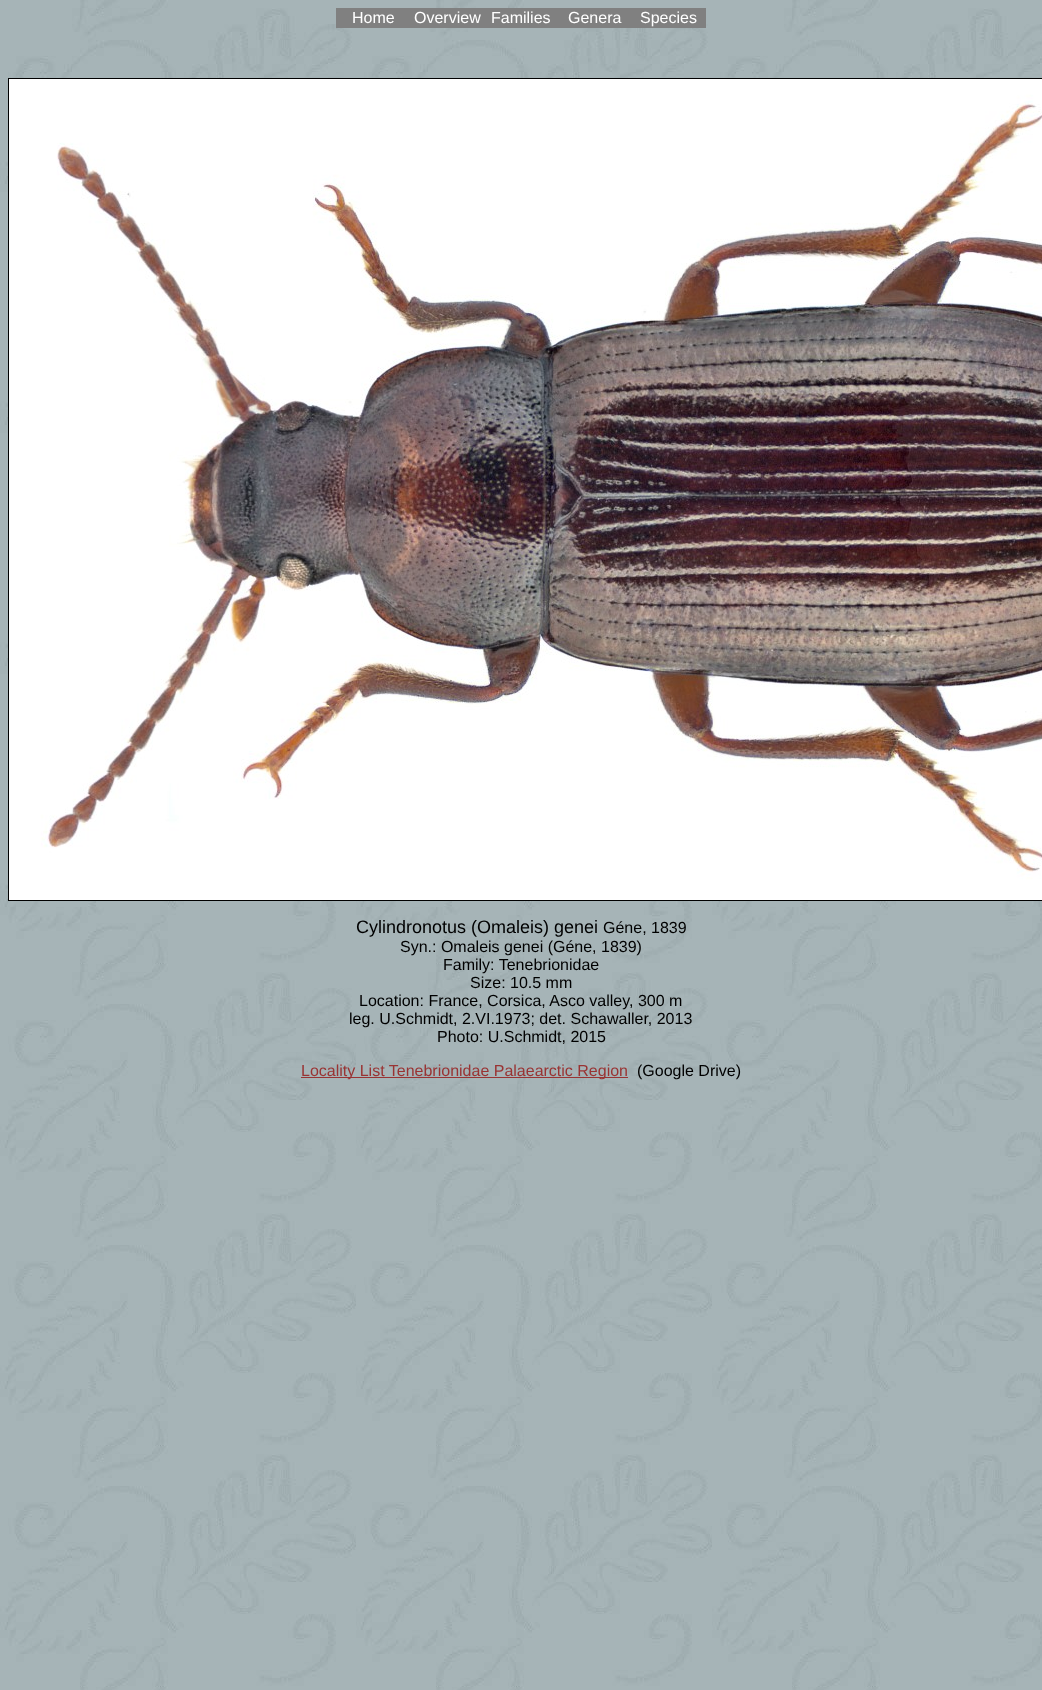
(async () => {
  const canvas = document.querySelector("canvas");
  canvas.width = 1042;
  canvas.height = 1690;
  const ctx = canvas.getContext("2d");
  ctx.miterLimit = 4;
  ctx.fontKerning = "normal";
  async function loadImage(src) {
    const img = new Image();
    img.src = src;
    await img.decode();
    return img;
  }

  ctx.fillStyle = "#ffffff";
  ctx.fillRect(0, 0, 1042, 1690);
  ctx.drawImage(await loadImage("img/1.png"), 0, 0, 1042, 1690);
  ctx.fillStyle = "#808080";
  ctx.fillRect(336, 8, 370, 20);
  ctx.strokeStyle = "#000000";
  ctx.strokeRect(8.5, 78.5, 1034, 822);
  ctx.drawImage(await loadImage("img/2.png"), 9, 79, 1033, 821);
  ctx.fillStyle = "#993333";
  ctx.fillRect(301, 1077, 327, 1);
  ctx.font = "16px Liberation Sans";
  ctx.fillStyle = "#ffffff";
  for (const [text, x, y] of [
    ["Home", 352, 23],
    ["Overview", 414, 23],
    ["Families", 491, 23],
    ["Genera", 568, 23],
    ["Species", 640, 23],
  ]) {
    ctx.fillText(text, x, y);
  }
  ctx.font = "18px Liberation Sans";
  ctx.fillStyle = "#000000";
  ctx.fillText("Cylindronotus (Omaleis) genei", 356, 933);
  ctx.font = "16px Liberation Sans";
  for (const [text, x, y] of [
    ["Géne, 1839", 603, 933],
    ["Syn.: Omaleis genei (Géne, 1839)", 400, 952],
    ["Family: Tenebrionidae", 443, 970],
    ["Size: 10.5 mm", 470, 988],
    ["Location: France, Corsica, Asco valley, 300 m", 359, 1006],
    ["leg. U.Schmidt, 2.VI.1973; det. Schawaller, 2013", 349, 1024],
    ["Photo: U.Schmidt, 2015", 437, 1042],
  ]) {
    ctx.fillText(text, x, y);
  }
  ctx.fillStyle = "#993333";
  ctx.fillText("Locality List Tenebrionidae Palaearctic Region", 301, 1076);
  ctx.fillStyle = "#000000";
  ctx.fillText("(Google Drive)", 637, 1076);
})();
